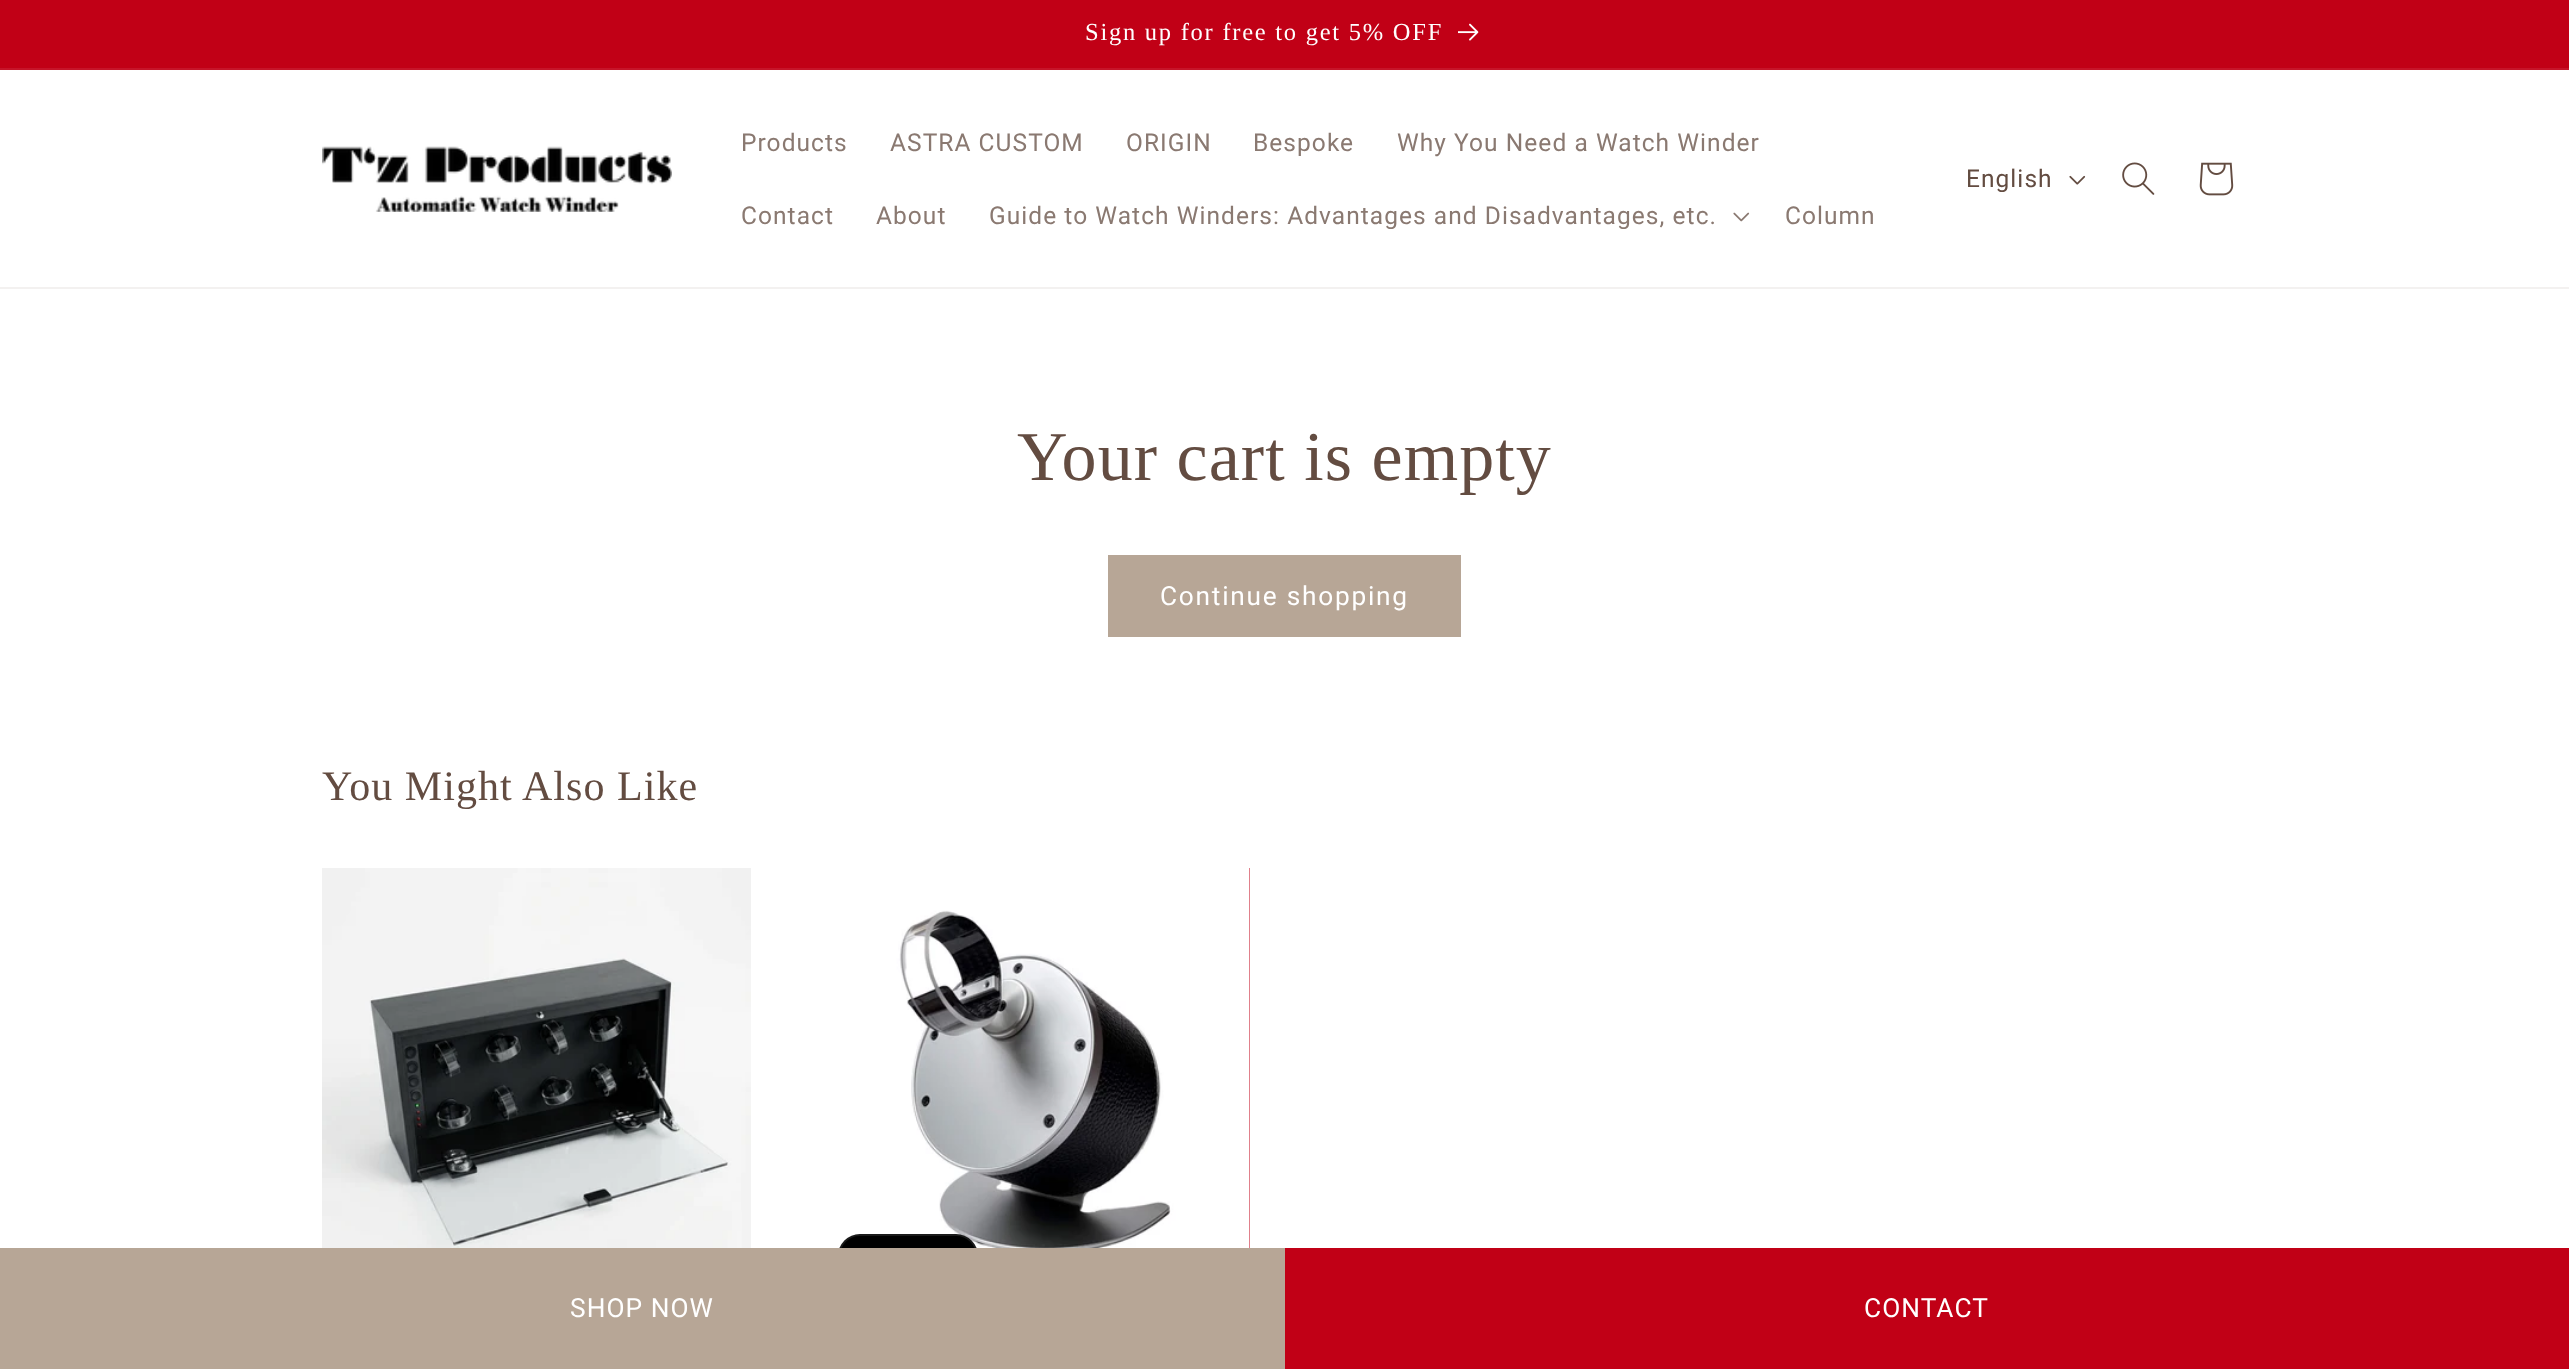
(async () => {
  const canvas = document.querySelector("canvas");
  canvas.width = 2569;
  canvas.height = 1369;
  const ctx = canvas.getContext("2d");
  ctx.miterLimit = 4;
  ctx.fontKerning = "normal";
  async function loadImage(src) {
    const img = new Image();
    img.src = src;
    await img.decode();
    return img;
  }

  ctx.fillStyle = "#ffffff";
  ctx.fillRect(0, 0, 2569, 1369);
  ctx.fillStyle = "#c10016";
  ctx.fillRect(0, 0, 2569, 68);
  ctx.fillStyle = "#c61429";
  ctx.fillRect(0, 68, 2569, 2);
  ctx.drawImage(await loadImage("img/1.png"), 1458, 23, 21, 18);
  ctx.fillStyle = "#f3f1f0";
  ctx.fillRect(0, 287, 2569, 2);
  ctx.drawImage(await loadImage("img/2.png"), 322, 146, 350, 66);
  ctx.drawImage(await loadImage("img/3.png"), 1733, 212, 17, 10);
  ctx.drawImage(await loadImage("img/4.png"), 2069, 175, 17, 10);
  ctx.drawImage(await loadImage("img/5.png"), 2122, 162, 33, 33);
  ctx.drawImage(await loadImage("img/6.png"), 2199, 162, 35, 34);
  ctx.fillStyle = "#b7a696";
  ctx.fillRect(1108, 555, 353, 82);
  ctx.drawImage(await loadImage("img/7.png"), 322, 868, 429, 380);
  ctx.fillStyle = "#c10016";
  ctx.fillRect(1249, 868, 1, 380);
  ctx.drawImage(await loadImage("img/8.png"), 821, 868, 429, 380);
  ctx.fillStyle = "#000000";
  ctx.beginPath();
  ctx.roundRect(838, 1234, 140, 44, 22);
  ctx.fill();
  ctx.beginPath();
  ctx.roundRect(839, 1235, 138, 42, 21);
  ctx.strokeStyle = "rgba(255, 255, 255, 0.1)";
  ctx.lineWidth = 2;
  ctx.stroke();
  ctx.fillStyle = "#b7a696";
  ctx.fillRect(0, 1248, 1285, 121);
  ctx.fillStyle = "#c10016";
  ctx.fillRect(1285, 1248, 1284, 121);
  ctx.letterSpacing = "1.75px";
  ctx.font = "24.5px Liberation Serif";
  ctx.fillStyle = "#ffffff";
  ctx.fillText("Sign up for free to get 5% OFF", 1085, 40);
  ctx.letterSpacing = "1.05px";
  ctx.font = "24.5px Roboto";
  ctx.fillStyle = "#8a7971";
  for (const [text, x, y] of [
    ["Products", 741, 151],
    ["ASTRA CUSTOM", 890, 151],
    ["ORIGIN", 1126, 151],
    ["Bespoke", 1253, 151],
    ["Why You Need a Watch Winder", 1397, 151],
    ["Contact", 741, 224],
    ["About", 876, 224],
    ["Guide to Watch Winders: Advantages and Disadvantages, etc.", 989, 224],
    ["Column", 1785, 224],
  ]) {
    ctx.fillText(text, x, y);
  }
  ctx.fillStyle = "#634c41";
  ctx.fillText("English", 1966, 187);
  ctx.font = "70px Liberation Serif";
  ctx.fillText("Your cart is empty", 1017, 480);
  ctx.letterSpacing = "1.75px";
  ctx.font = "26.25px Roboto";
  ctx.fillStyle = "#ffffff";
  ctx.fillText("Continue shopping", 1160, 605);
  ctx.letterSpacing = "1.05px";
  ctx.font = "42px Liberation Serif";
  ctx.fillStyle = "#634c41";
  ctx.fillText("You Might Also Like", 322, 800);
  ctx.font = "26.25px Roboto";
  ctx.fillStyle = "#ffffff";
  ctx.fillText("SHOP NOW", 570, 1317);
  ctx.fillText("CONTACT", 1864, 1317);
})();
